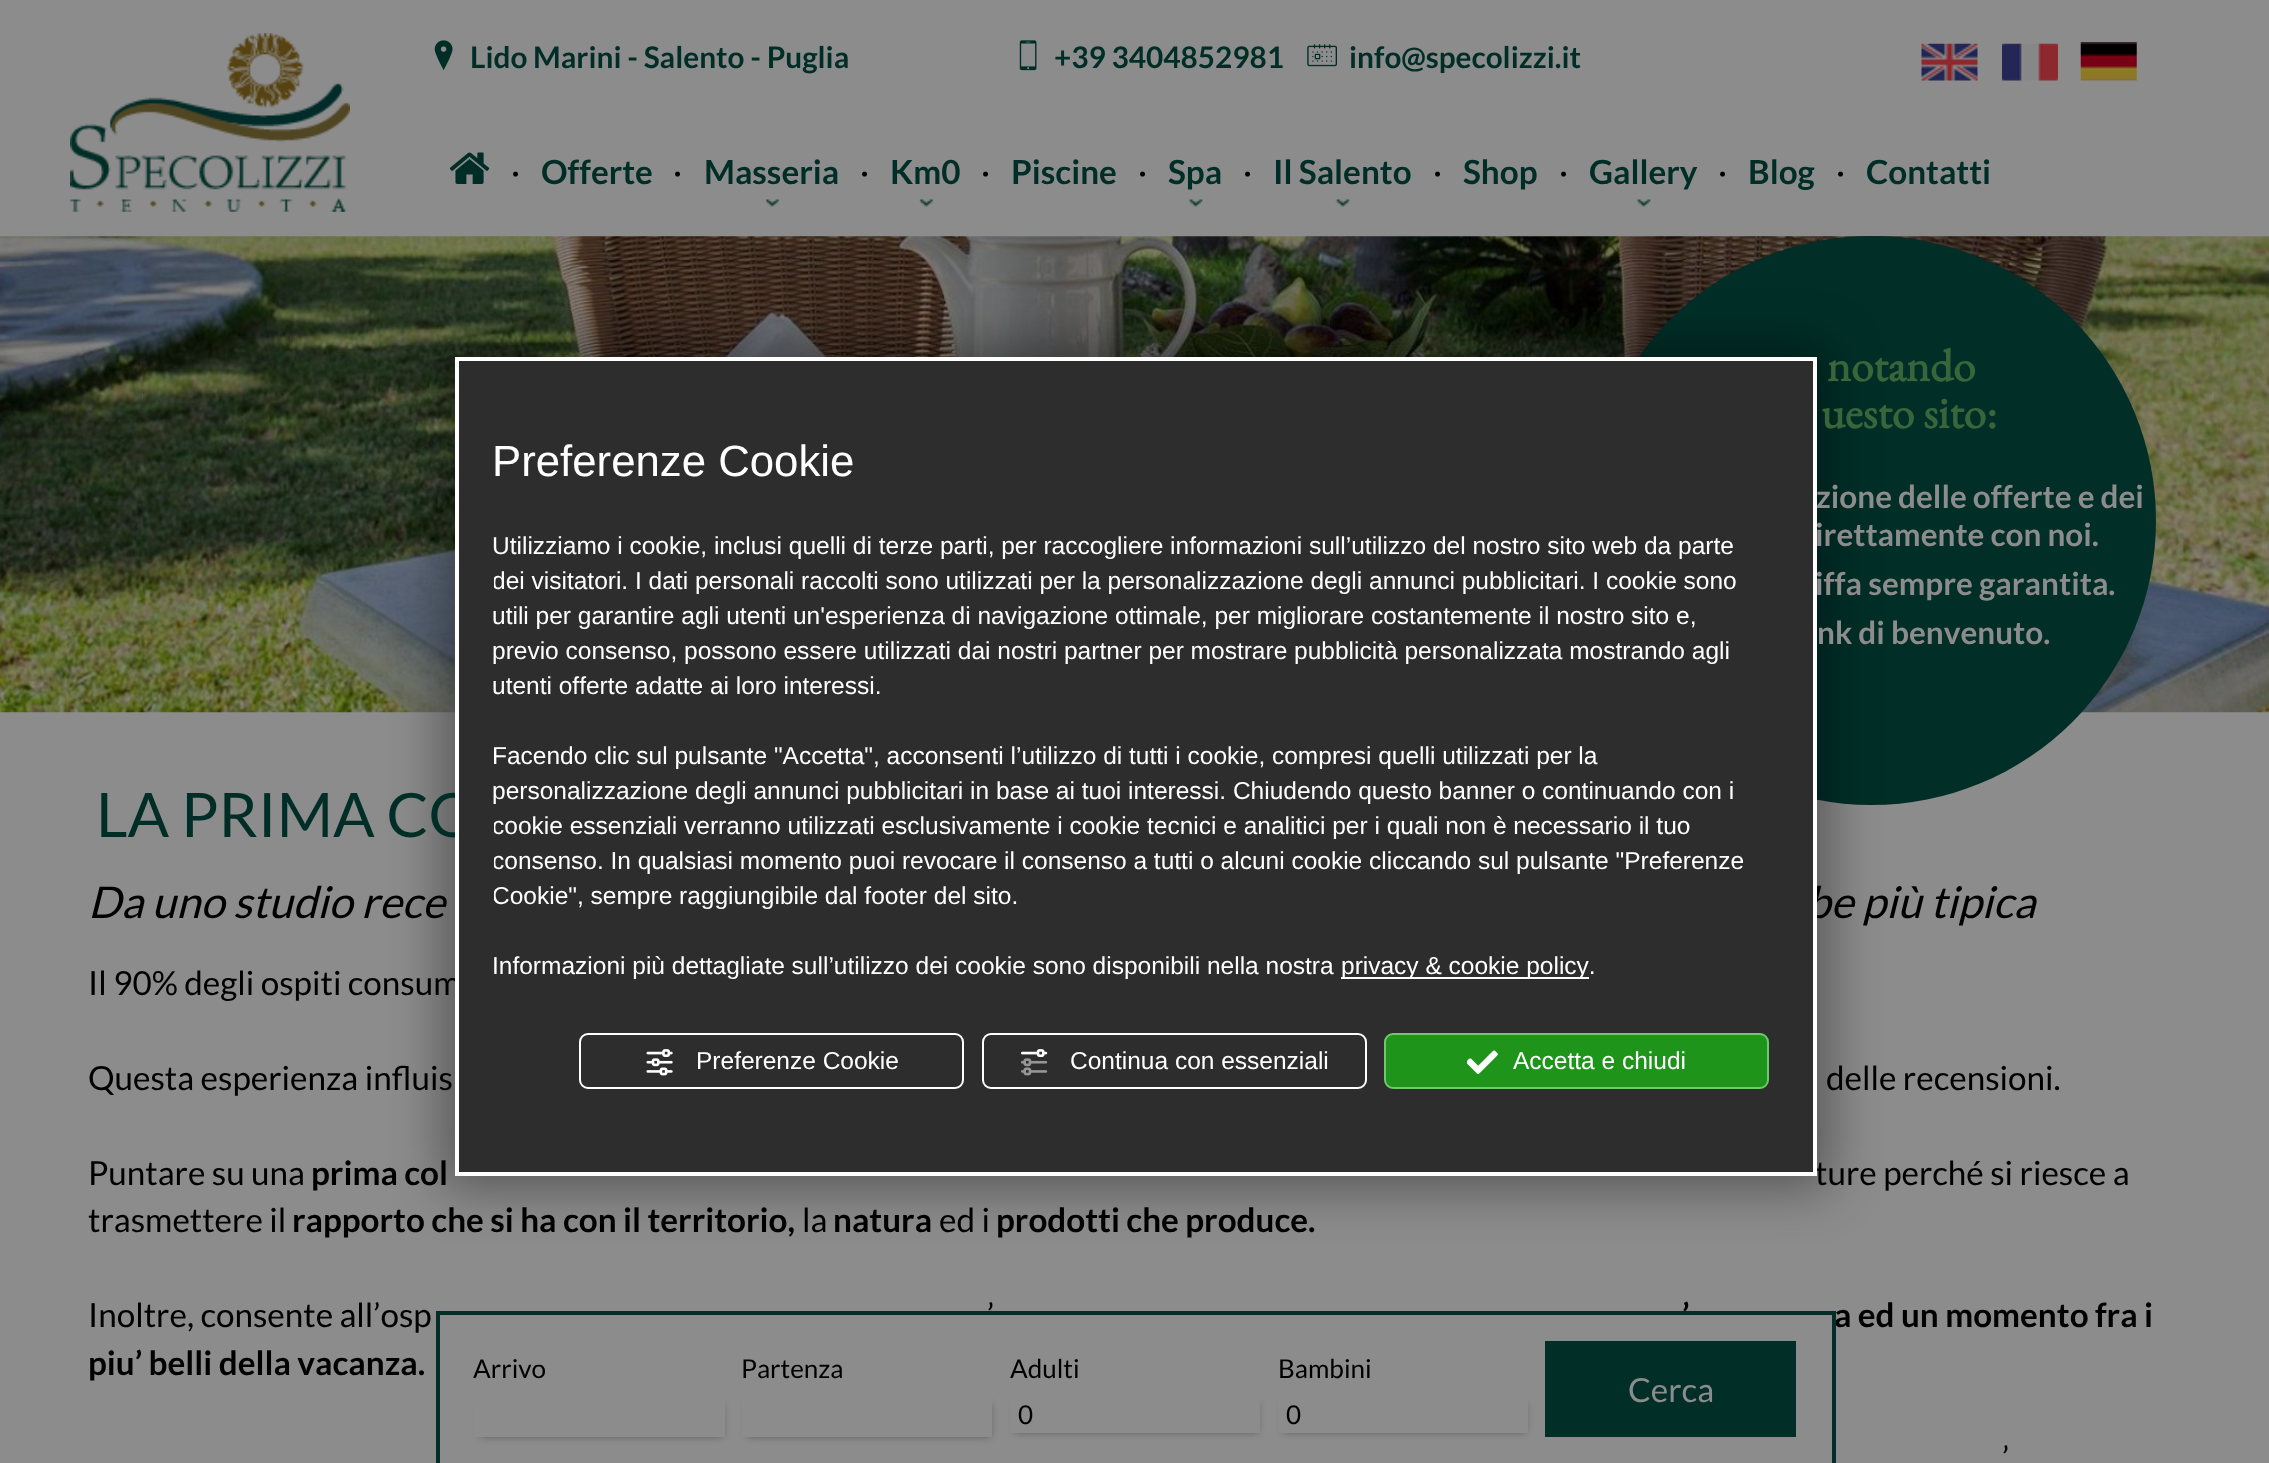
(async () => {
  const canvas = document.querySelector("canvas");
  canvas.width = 2269;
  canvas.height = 1463;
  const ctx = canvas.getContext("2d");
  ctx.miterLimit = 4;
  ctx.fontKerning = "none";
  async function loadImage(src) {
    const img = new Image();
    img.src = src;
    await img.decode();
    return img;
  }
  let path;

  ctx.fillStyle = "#8c8c8c";
  ctx.fillRect(0, 0, 2269, 1463);
  ctx.drawImage(await loadImage("img/1.png"), 70, 33, 280, 179);
  ctx.drawImage(await loadImage("img/2.png"), 434, 40, 19, 30);
  ctx.drawImage(await loadImage("img/3.png"), 1019, 40, 18, 31);
  ctx.drawImage(await loadImage("img/4.png"), 1307, 44, 30, 23);
  ctx.drawImage(await loadImage("img/5.png"), 1921, 43, 57, 38);
  ctx.drawImage(await loadImage("img/6.png"), 2002, 43, 56, 38);
  ctx.drawImage(await loadImage("img/7.png"), 2080, 42, 57, 39);
  ctx.drawImage(await loadImage("img/8.png"), 765, 199, 14, 8);
  ctx.drawImage(await loadImage("img/9.png"), 919, 199, 14, 8);
  ctx.drawImage(await loadImage("img/10.png"), 1188, 199, 15, 8);
  ctx.drawImage(await loadImage("img/11.png"), 1335, 199, 15, 8);
  ctx.drawImage(await loadImage("img/10.png"), 1636, 199, 15, 8);
  ctx.drawImage(await loadImage("img/12.png"), 0, 236, 2269, 477);
  ctx.fillStyle = "#012f28";
  ctx.beginPath();
  ctx.arc(1871.5, 520.5, 284.5, 0, Math.PI * 2);
  ctx.fill();
  ctx.fillStyle = "rgba(0, 0, 0, 0.38)";
  ctx.filter = "blur(25.5px)";
  ctx.beginPath();
  ctx.rect(443, 345, 1386, 843);
  ctx.fill();
  ctx.filter = "none";
  ctx.save();
  path = new Path2D("M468 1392H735V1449H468ZM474 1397H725V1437H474Z");
  ctx.clip(path, "evenodd");
  ctx.fillStyle = "rgba(0, 0, 0, 0.3)";
  ctx.filter = "blur(3.5px)";
  ctx.beginPath();
  ctx.rect(480, 1404, 243, 33);
  ctx.fill();
  ctx.filter = "none";
  ctx.restore();
  ctx.save();
  path = new Path2D("M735 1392H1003V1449H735ZM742 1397H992V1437H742Z");
  ctx.clip(path, "evenodd");
  ctx.fillStyle = "rgba(0, 0, 0, 0.3)";
  ctx.filter = "blur(3.5px)";
  ctx.beginPath();
  ctx.rect(747, 1404, 244, 33);
  ctx.fill();
  ctx.filter = "none";
  ctx.restore();
  ctx.save();
  path = new Path2D("M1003 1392H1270V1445H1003ZM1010 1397H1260V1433H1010Z");
  ctx.clip(path, "evenodd");
  ctx.fillStyle = "rgba(0, 0, 0, 0.3)";
  ctx.filter = "blur(3.5px)";
  ctx.beginPath();
  ctx.rect(1015, 1404, 243, 29);
  ctx.fill();
  ctx.filter = "none";
  ctx.restore();
  ctx.save();
  path = new Path2D("M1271 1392H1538V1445H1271ZM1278 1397H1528V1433H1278Z");
  ctx.clip(path, "evenodd");
  ctx.fillStyle = "rgba(0, 0, 0, 0.3)";
  ctx.filter = "blur(3.5px)";
  ctx.beginPath();
  ctx.rect(1283, 1404, 243, 29);
  ctx.fill();
  ctx.filter = "none";
  ctx.restore();
  ctx.fillStyle = "#012f28";
  ctx.fillRect(1545, 1341, 251, 96);
  ctx.font = "bold 29.75px Lato";
  ctx.fillStyle = "#002e27";
  for (const [text, x, y] of [
    ["Lido Marini - Salento - Puglia", 470, 68],
    ["+39 3404852981", 1054, 68],
    ["info@specolizzi.it", 1349, 68],
  ]) {
    ctx.fillText(text, x, y);
  }
  ctx.font = "43.75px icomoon";
  ctx.fillText("🏠", 449, 187);
  ctx.font = "33.25px Lato";
  ctx.fillStyle = "#000000";
  ctx.fillText("·", 511, 184);
  ctx.font = "bold 33.25px Lato";
  ctx.fillStyle = "#002e27";
  ctx.fillText("Offerte", 541, 184);
  ctx.font = "33.25px Lato";
  ctx.fillStyle = "#000000";
  ctx.fillText("·", 673, 184);
  ctx.font = "bold 33.25px Lato";
  ctx.fillStyle = "#002e27";
  ctx.fillText("Masseria", 704, 184);
  ctx.font = "33.25px Lato";
  ctx.fillStyle = "#000000";
  ctx.fillText("·", 860, 184);
  ctx.font = "bold 33.25px Lato";
  ctx.fillStyle = "#002e27";
  ctx.fillText("Km0", 890, 184);
  ctx.font = "33.25px Lato";
  ctx.fillStyle = "#000000";
  ctx.fillText("·", 981, 184);
  ctx.font = "bold 33.25px Lato";
  ctx.fillStyle = "#002e27";
  ctx.fillText("Piscine", 1011, 184);
  ctx.font = "33.25px Lato";
  ctx.fillStyle = "#000000";
  ctx.fillText("·", 1138, 184);
  ctx.font = "bold 33.25px Lato";
  ctx.fillStyle = "#002e27";
  ctx.fillText("Spa", 1168, 184);
  ctx.font = "33.25px Lato";
  ctx.fillStyle = "#000000";
  ctx.fillText("·", 1243, 184);
  ctx.font = "bold 33.25px Lato";
  ctx.fillStyle = "#002e27";
  ctx.fillText("Il Salento", 1273, 184);
  ctx.font = "33.25px Lato";
  ctx.fillStyle = "#000000";
  ctx.fillText("·", 1433, 184);
  ctx.font = "bold 33.25px Lato";
  ctx.fillStyle = "#002e27";
  ctx.fillText("Shop", 1463, 184);
  ctx.font = "33.25px Lato";
  ctx.fillStyle = "#000000";
  ctx.fillText("·", 1559, 184);
  ctx.font = "bold 33.25px Lato";
  ctx.fillStyle = "#002e27";
  ctx.fillText("Gallery", 1589, 184);
  ctx.font = "33.25px Lato";
  ctx.fillStyle = "#000000";
  ctx.fillText("·", 1718, 184);
  ctx.font = "bold 33.25px Lato";
  ctx.fillStyle = "#002e27";
  ctx.fillText("Blog", 1748, 184);
  ctx.font = "33.25px Lato";
  ctx.fillStyle = "#000000";
  ctx.fillText("·", 1836, 184);
  ctx.font = "bold 33.25px Lato";
  ctx.fillStyle = "#002e27";
  ctx.fillText("Contatti", 1866, 184);
  ctx.font = "bold 45.5px EB Garamond";
  ctx.fillStyle = "#38663a";
  ctx.fillText("notando", 1827, 381);
  ctx.fillText("uesto sito:", 1821, 428);
  ctx.font = "bold 31.5px Lato";
  ctx.fillStyle = "#8c8c8c";
  for (const [text, x, y] of [
    ["zione delle offerte e dei", 1816, 508],
    ["irettamente con noi.", 1815, 546],
    ["iffa sempre garantita.", 1815, 595],
    ["nk di benvenuto.", 1817, 644],
  ]) {
    ctx.fillText(text, x, y);
  }
  ctx.font = "61.25px Lato";
  ctx.fillStyle = "#002e27";
  ctx.fillText("LA PRIMA CO", 96, 837);
  ctx.font = "italic 43.75px Lato";
  ctx.fillStyle = "#000000";
  ctx.fillText("Da uno studio rece", 88, 918);
  ctx.fillText("be più tipica", 1806, 918);
  ctx.font = "33.25px Lato";
  for (const [text, x, y] of [
    ["Il 90% degli ospiti consum", 88, 995],
    ["Questa esperienza influis", 88, 1090],
    ["delle recensioni.", 1826, 1090],
    ["Puntare su una", 88, 1185],
  ]) {
    ctx.fillText(text, x, y);
  }
  ctx.font = "bold 33.25px Lato";
  ctx.fillText("prima col", 311, 1185);
  ctx.font = "33.25px Lato";
  ctx.fillText("ture perché si riesce a", 1815, 1185);
  ctx.fillText("trasmettere il", 88, 1232);
  ctx.font = "bold 33.25px Lato";
  ctx.fillText("rapporto che si ha con il territorio,", 292, 1232);
  ctx.font = "33.25px Lato";
  ctx.fillText("la", 802, 1232);
  ctx.font = "bold 33.25px Lato";
  ctx.fillText("natura", 833, 1232);
  ctx.font = "33.25px Lato";
  ctx.fillText("ed i", 939, 1232);
  ctx.font = "bold 33.25px Lato";
  ctx.fillText("prodotti che produce.", 996, 1232);
  ctx.font = "33.25px Lato";
  ctx.fillText("Inoltre, consente all’osp", 88, 1327);
  ctx.fillText("’", 987, 1327);
  ctx.font = "bold 33.25px Lato";
  for (const [text, x, y] of [
    ["’", 1682, 1327],
    ["a ed un momento fra i", 1834, 1327],
    ["piu’ belli della vacanza.", 88, 1375],
  ]) {
    ctx.fillText(text, x, y);
  }
  ctx.font = "33.25px Lato";
  ctx.fillText("’", 2002, 1470);
  ctx.fillStyle = "#2d2d2d";
  ctx.beginPath();
  ctx.rect(457, 359, 1358, 815);
  ctx.fill();
  ctx.strokeStyle = "#ffffff";
  ctx.lineWidth = 4;
  ctx.stroke();
  ctx.font = "43.75px Liberation Sans";
  ctx.fillStyle = "#ffffff";
  ctx.fillText("Preferenze Cookie", 492, 476);
  ctx.font = "24.5px Liberation Sans";
  ctx.fillText("Utilizziamo i cookie, inclusi quelli di terze parti, per raccogliere informazioni sull’utilizzo del nostro sito web da parte", 492, 554);
  ctx.save();
  ctx.beginPath();
  ctx.rect(494, 529, 1284, 455);
  ctx.clip();
  ctx.fillText("dei visitatori. I dati personali raccolti sono utilizzati per la personalizzazione degli annunci pubblicitari. I cookie sono", 492, 589);
  ctx.restore();
  for (const [text, x, y] of [
    ["utili per garantire agli utenti un'esperienza di navigazione ottimale, per migliorare costantemente il nostro sito e,", 492, 624],
    ["previo consenso, possono essere utilizzati dai nostri partner per mostrare pubblicità personalizzata mostrando agli", 492, 659],
    ["utenti offerte adatte ai loro interessi.", 492, 694],
    ["Facendo clic sul pulsante \"Accetta\", acconsenti l’utilizzo di tutti i cookie, compresi quelli utilizzati per la", 492, 764],
    ["personalizzazione degli annunci pubblicitari in base ai tuoi interessi. Chiudendo questo banner o continuando con i", 492, 799],
  ]) {
    ctx.fillText(text, x, y);
  }
  ctx.save();
  ctx.beginPath();
  ctx.rect(494, 529, 1284, 455);
  ctx.clip();
  for (const [text, x, y] of [
    ["cookie essenziali verranno utilizzati esclusivamente i cookie tecnici e analitici per i quali non è necessario il tuo", 492, 834],
    ["consenso. In qualsiasi momento puoi revocare il consenso a tutti o alcuni cookie cliccando sul pulsante \"Preferenze", 492, 869],
    ["Cookie\", sempre raggiungibile dal footer del sito.", 492, 904],
  ]) {
    ctx.fillText(text, x, y);
  }
  ctx.restore();
  ctx.fillText("Informazioni più dettagliate sull’utilizzo dei cookie sono disponibili nella nostra", 492, 974);
  ctx.fillRect(1341, 977, 248, 2);
  ctx.fillText("privacy & cookie policy.", 1341, 974);
  ctx.beginPath();
  ctx.roundRect(580, 1034, 383, 54, 8);
  ctx.lineWidth = 2;
  ctx.stroke();
  ctx.drawImage(await loadImage("img/13.png"), 646, 1049, 27, 27);
  ctx.fillText("Preferenze Cookie", 696, 1069);
  ctx.beginPath();
  ctx.roundRect(983, 1034, 383, 54, 8);
  ctx.stroke();
  ctx.drawImage(await loadImage("img/14.png"), 1021, 1049, 27, 27);
  ctx.fillText("Continua con essenziali", 1070, 1069);
  ctx.fillStyle = "#1e941a";
  ctx.beginPath();
  ctx.roundRect(1385, 1034, 383, 54, 8);
  ctx.fill();
  ctx.strokeStyle = "#6cca69";
  ctx.stroke();
  ctx.drawImage(await loadImage("img/15.png"), 1467, 1050, 31, 24);
  ctx.fillStyle = "#ffffff";
  ctx.fillText("Accetta e chiudi", 1513, 1069);
  for (const [x, y, w, h, color] of [
    [436, 1311, 1400, 4, "#012f28"],
    [1832, 1311, 4, 152, "#012f28"],
    [436, 1311, 4, 152, "#012f28"],
  ]) {
    ctx.fillStyle = color;
    ctx.fillRect(x, y, w, h);
  }
  ctx.font = "26px Lato";
  ctx.fillStyle = "#000000";
  for (const [text, x, y] of [
    ["Arrivo", 473, 1378],
    ["Partenza", 741, 1378],
    ["Adulti", 1010, 1378],
    ["0", 1018, 1424],
    ["Bambini", 1278, 1378],
    ["0", 1286, 1424],
  ]) {
    ctx.fillText(text, x, y);
  }
  ctx.font = "33.25px Lato";
  ctx.fillStyle = "#8c8c8c";
  ctx.fillText("Cerca", 1628, 1402);
})();
